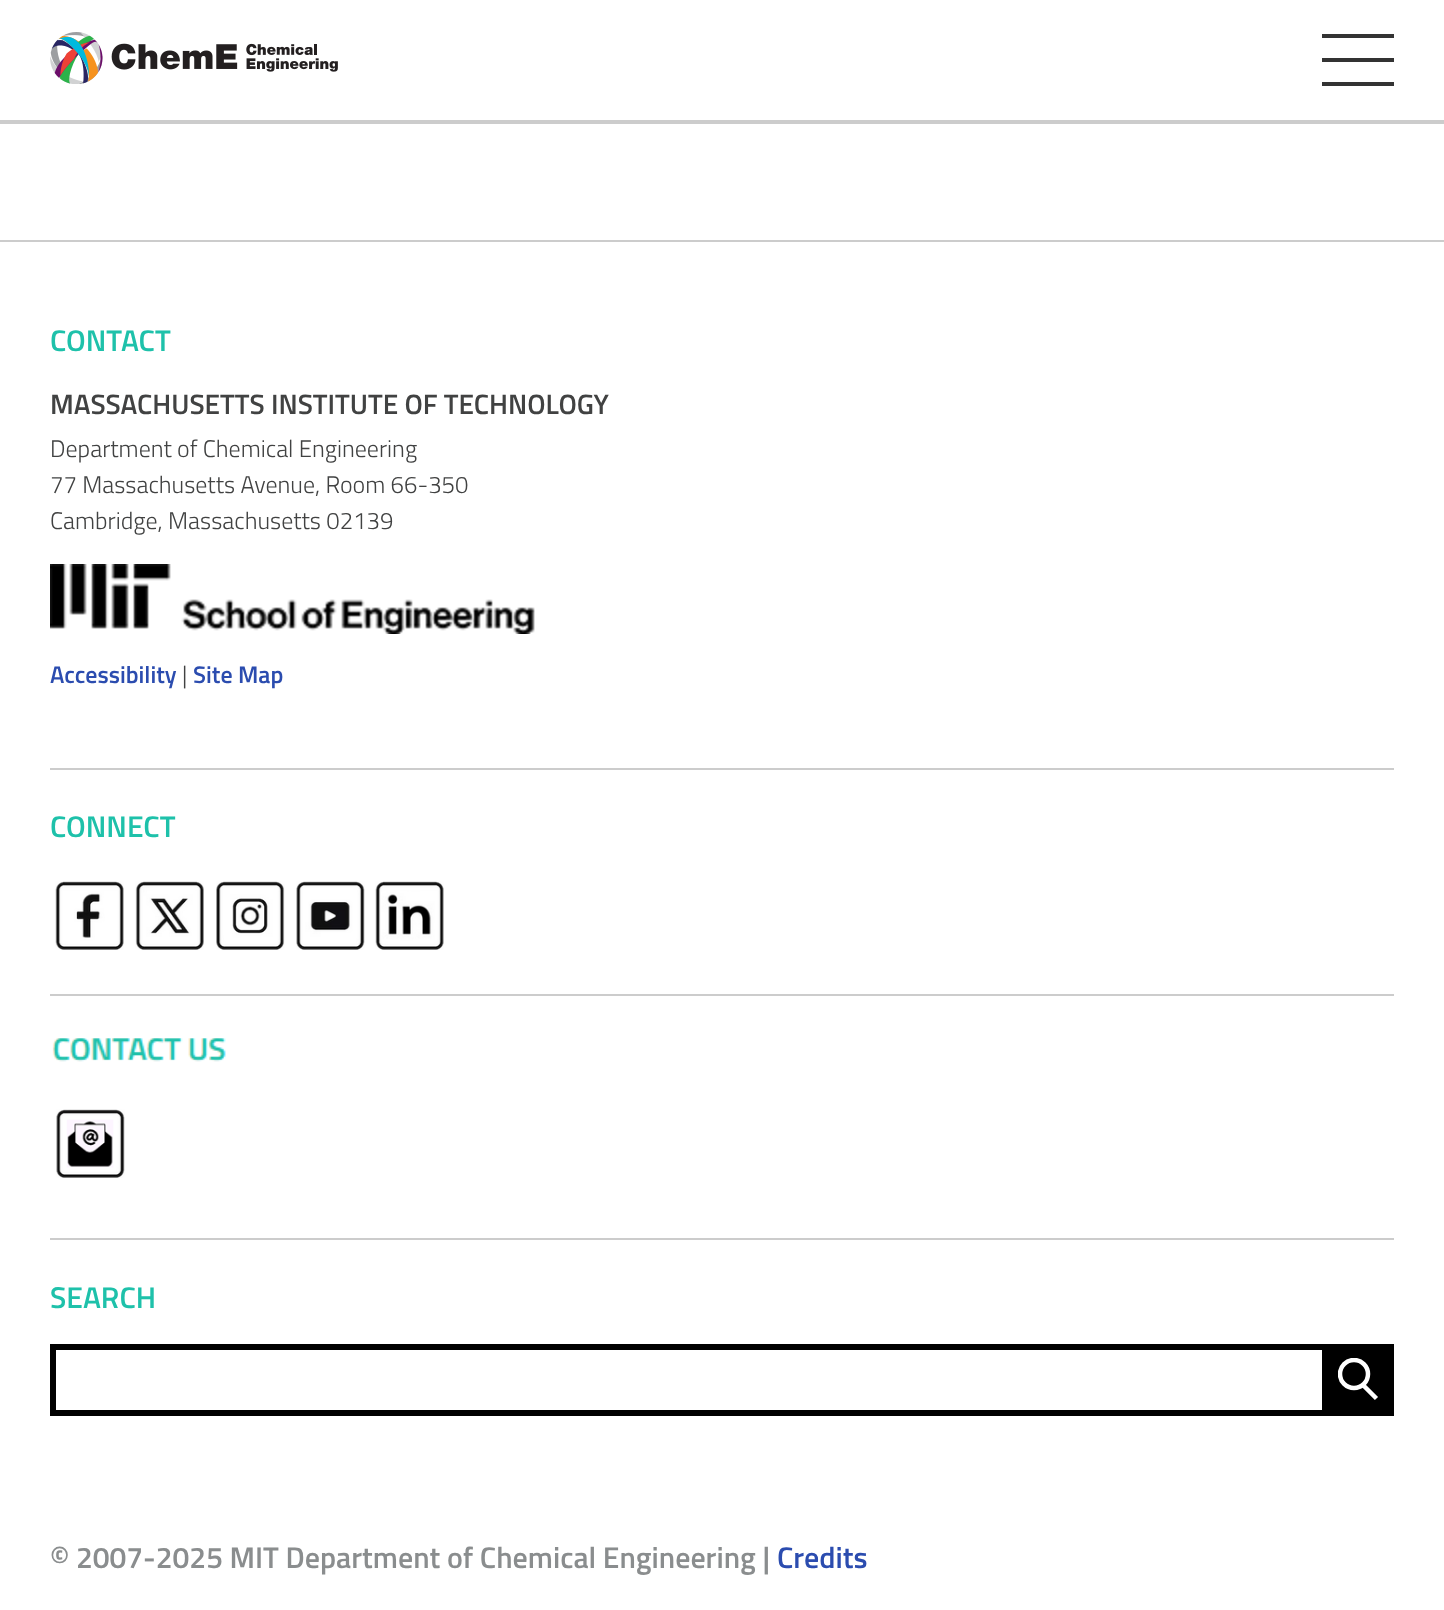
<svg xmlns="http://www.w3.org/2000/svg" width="1444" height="1610">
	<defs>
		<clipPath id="clip1"><rect x="1338" y="1358" width="40" height="42" /></clipPath>
	</defs>
	<rect width="100%" height="100%" fill="#FFFFFF" />
	<rect x="0" y="120" width="1444" height="4" fill="#CCCCCC" />
	<image x="50" y="32" width="288" height="52" href="assets/img1.png" />
	<rect x="1322" y="34" width="72" height="4" fill="#333333" />
	<rect x="1322" y="58" width="72" height="4" fill="#333333" />
	<rect x="1322" y="82" width="72" height="4" fill="#333333" />
	<rect x="0" y="240" width="1444" height="2" fill="#CCCCCC" />
	<rect x="50" y="768" width="1344" height="2" fill="#CCCCCC" />
	<text x="50" y="351" font-family="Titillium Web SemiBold" font-size="30" font-weight="600" fill="#1EC1AA">CONTACT</text>
	<text x="50" y="414" font-family="Titillium Web SemiBold" font-size="28" font-weight="600" fill="#414242">MASSACHUSETTS INSTITUTE OF TECHNOLOGY</text>
	<g font-family="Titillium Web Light" font-size="24" font-weight="300" fill="#414242">
		<text x="50" y="457">Department of Chemical Engineering</text>
		<text x="50" y="493">77 Massachusetts Avenue, Room 66-350</text>
		<text x="50" y="529">Cambridge, Massachusetts 02139</text>
	</g>
	<image x="50" y="564" width="485" height="70" href="assets/img2.png" />
	<text x="50" y="683" font-family="Titillium Web SemiBold" font-size="24" font-weight="600" fill="#2B4CAF">Accessibility</text>
	<text x="182" y="683" font-family="Titillium Web Light" font-size="24" font-weight="300" fill="#414242">|</text>
	<text x="193" y="683" font-family="Titillium Web SemiBold" font-size="24" font-weight="600" fill="#2B4CAF">Site Map</text>
	<rect x="50" y="1238" width="1344" height="2" fill="#CCCCCC" />
	<text x="50" y="837" font-family="Titillium Web SemiBold" font-size="30" font-weight="600" fill="#1EC1AA">CONNECT</text>
	<image x="55" y="881" width="69" height="69" href="assets/img3.png" />
	<image x="135" y="881" width="69" height="69" href="assets/img4.png" />
	<image x="216" y="881" width="69" height="69" href="assets/img5.png" />
	<image x="296" y="881" width="69" height="69" href="assets/img6.png" />
	<image x="375" y="881" width="69" height="69" href="assets/img7.png" />
	<rect x="50" y="994" width="1344" height="2" fill="#CCCCCC" />
	<image x="52" y="1038" width="174" height="24" href="assets/img8.png" />
	<image x="56" y="1109" width="69" height="69" href="assets/img9.png" />
	<text x="50" y="1308" font-family="Titillium Web SemiBold" font-size="30" font-weight="600" fill="#1EC1AA">SEARCH</text>
	<rect x="50" y="1344" width="1272" height="6" fill="#000000" />
	<rect x="50" y="1410" width="1272" height="6" fill="#000000" />
	<rect x="50" y="1344" width="6" height="72" fill="#000000" />
	<rect x="1322" y="1344" width="72" height="72" fill="#000000" />
	<g clip-path="url(#clip1)">
		<circle cx="1354" cy="1374" r="14" fill="none" stroke="#FFFFFF" stroke-width="4.5" />
	</g>
	<path d="M1362 1384L1376.5 1398.5" fill="none" stroke="#FFFFFF" stroke-width="4.5" />
	<text x="50" y="1568" font-family="Titillium Web SemiBold" font-size="30" font-weight="600" fill="#8A8D8E">© 2007-2025 MIT Department of Chemical Engineering |</text>
	<text x="777" y="1568" font-family="Titillium Web SemiBold" font-size="30" font-weight="600" fill="#2B4CAF">Credits</text>
</svg>
